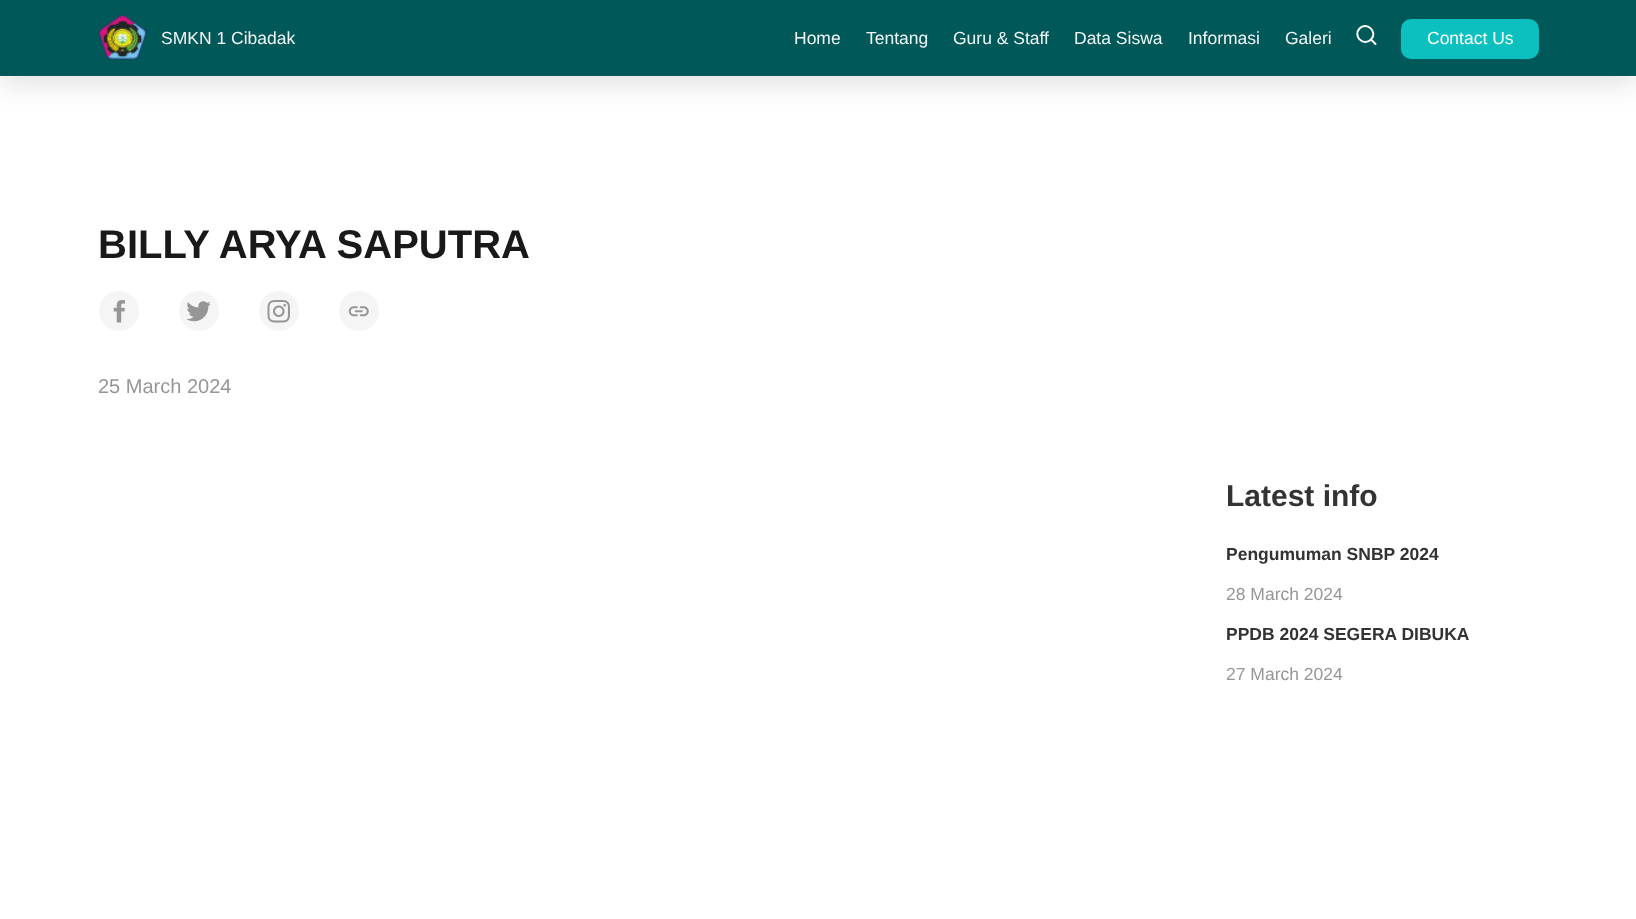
<svg xmlns="http://www.w3.org/2000/svg" width="1636" height="919">
	<rect width="100%" height="100%" fill="#FFFFFF" />
	<rect x="0" y="5" width="1636" height="76" fill="#000000" fill-opacity="0.14" filter="blur(15.5px)" />
	<rect x="0" y="0" width="1636" height="76" fill="#005858" />
	<image x="98" y="15" width="49" height="45" href="assets/img1.png" />
	<g font-family="Liberation Sans" font-size="17.5" fill="#F3F4F6">
		<text x="161" y="44">SMKN 1 Cibadak</text>
		<text x="794" y="44">Home</text>
		<text x="866" y="44">Tentang</text>
		<text x="953" y="44">Guru &amp; Staff</text>
		<text x="1074" y="44">Data Siswa</text>
		<text x="1188" y="44">Informasi</text>
		<text x="1285" y="44">Galeri</text>
	</g>
	<path d="M1375.5 44L1371 39.5M1371 39.5C1378.5 32 1366.5 21 1359.5 28.5C1352.5 36 1363.5 47 1371 39.5Z" fill="none" stroke="#FFFFFF" stroke-width="2" stroke-linecap="round" stroke-linejoin="round" />
	<rect x="1401" y="19" width="138" height="40" rx="10" fill="#0DC0C0" />
	<text x="1427" y="44" font-family="Liberation Sans" font-size="17.5" fill="#FFFFFF">Contact Us</text>
	<text x="98" y="258" font-family="Liberation Sans" font-size="40" font-weight="700" fill="#191919">BILLY ARYA SAPUTRA</text>
	<image x="99" y="291" width="40" height="40" href="assets/img2.png" />
	<image x="179" y="291" width="40" height="40" href="assets/img3.png" />
	<image x="259" y="291" width="40" height="40" href="assets/img4.png" />
	<image x="339" y="291" width="40" height="40" href="assets/img5.png" />
	<text x="98" y="393" font-family="Liberation Sans" font-size="20" fill="#969696">25 March 2024</text>
	<text x="1226" y="506" font-family="Liberation Sans" font-size="30" font-weight="700" fill="#333333">Latest info</text>
	<text x="1226" y="560" font-family="Liberation Sans" font-size="17.5" font-weight="700" fill="#333333">Pengumuman SNBP 2024</text>
	<text x="1226" y="600" font-family="Liberation Sans" font-size="17.5" fill="#969696">28 March 2024</text>
	<text x="1226" y="640" font-family="Liberation Sans" font-size="17.5" font-weight="700" fill="#333333">PPDB 2024 SEGERA DIBUKA</text>
	<text x="1226" y="680" font-family="Liberation Sans" font-size="17.5" fill="#969696">27 March 2024</text>
</svg>
